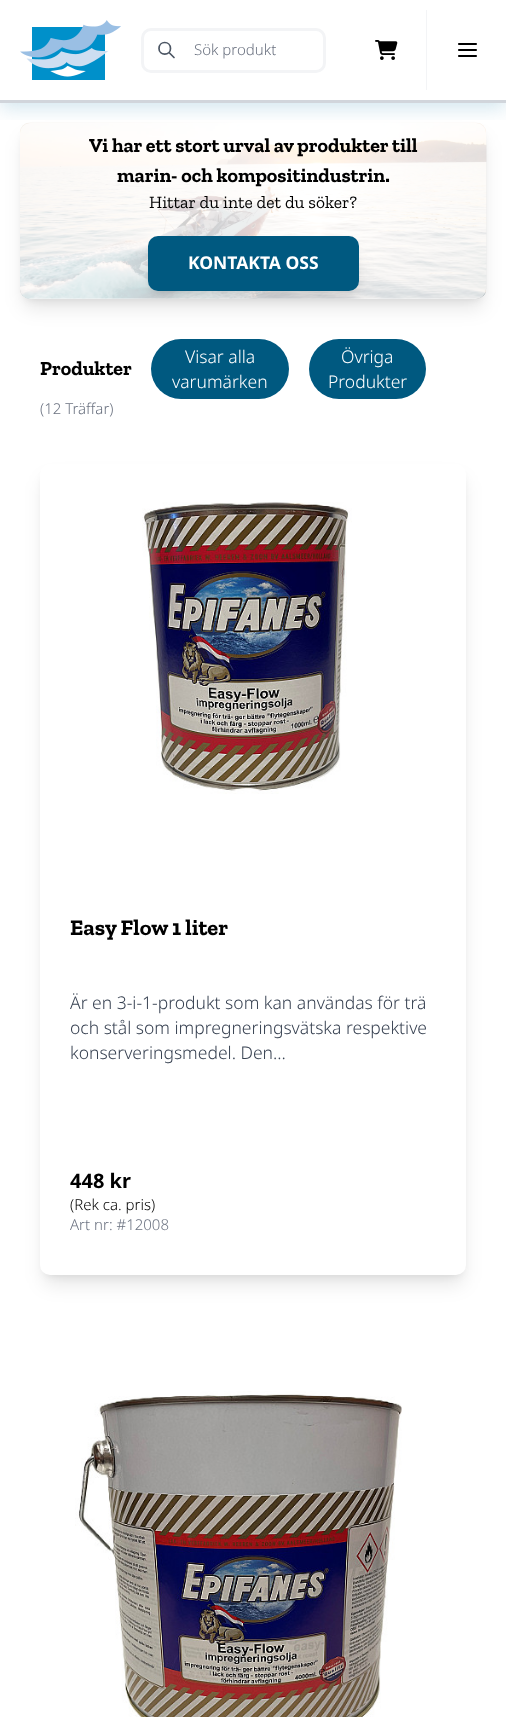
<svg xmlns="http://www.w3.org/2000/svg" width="506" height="1717">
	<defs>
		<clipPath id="clip1"><rect x="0" y="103" width="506" height="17" /></clipPath>
		<clipPath id="clip2"><rect x="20" y="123" width="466" height="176" rx="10" /></clipPath>
	</defs>
	<rect width="100%" height="100%" fill="#FFFFFF" />
	<g clip-path="url(#clip1)">
		<rect x="0" y="5" width="506" height="103" fill="#0071A0" fill-opacity="0.18" filter="blur(9.5px)" />
	</g>
	<rect x="0" y="100" width="506" height="3" fill="#D1D5DB" />
	<image x="20" y="20" width="101" height="60" href="assets/img1.png" />
	<rect x="142.5" y="29.5" width="182" height="42" rx="8.5" fill="none" stroke="#F3F4F6" stroke-width="3" />
	<path d="M174 57.5L169 52.5M170.5 48.5C170.5 56 159 56 159 48.5C159 40.5 170.5 40.5 170.5 48.5Z" fill="none" stroke="#4B5563" stroke-width="1.7" stroke-linecap="round" stroke-linejoin="round" />
	<text x="194" y="55" font-family="Noto Sans" font-size="15" font-weight="300" fill="#6B7280">Sök produkt</text>
	<image x="375" y="40" width="23" height="20" href="assets/img2.png" />
	<rect x="426" y="10" width="1" height="80" fill="#F3F4F6" />
	<path d="M459 44H476M459 50H476M459 56H476" fill="none" stroke="#000000" stroke-width="2.1" stroke-linecap="round" stroke-linejoin="round" />
	<rect x="25" y="133" width="456" height="166" rx="5" fill="#000000" fill-opacity="0.1" filter="blur(4px)" />
	<rect x="24" y="139" width="459" height="169" rx="6" fill="#000000" fill-opacity="0.1" filter="blur(9.5px)" />
	<image x="20" y="122" width="467" height="177" href="assets/img3.png" />
	<rect x="20" y="123" width="466" height="176" rx="10" fill="#FFFFFF" fill-opacity="0.8" />
	<g font-family="Zilla Slab" font-size="20" font-weight="700" fill="#000000">
		<text x="89" y="152">Vi har ett stort urval av produkter till</text>
		<text x="117" y="182">marin- och kompositindustrin.</text>
	</g>
	<text x="149" y="208" font-family="Zilla Slab" font-size="17.5" fill="#000000">Hittar du inte det du söker?</text>
	<rect x="153" y="246" width="201" height="45" rx="5" fill="#000000" fill-opacity="0.1" filter="blur(4px)" />
	<g clip-path="url(#clip2)">
		<rect x="151" y="253" width="204" height="47" rx="6" fill="#000000" fill-opacity="0.1" filter="blur(9.5px)" />
	</g>
	<rect x="148" y="236" width="211" height="55" rx="10" fill="#005980" />
	<text x="188" y="269" font-family="Noto Sans" font-size="17.5" font-weight="700" fill="#FFFFFF">KONTAKTA OSS</text>
	<text x="40" y="375" font-family="Zilla Slab" font-size="20" font-weight="700" fill="#000000">Produkter</text>
	<rect x="151" y="339" width="138" height="60" rx="30" fill="#005980" />
	<g font-family="Noto Sans" font-size="17.5" font-weight="300" fill="#FFFFFF">
		<text x="185" y="363">Visar alla</text>
		<text x="172" y="388">varumärken</text>
	</g>
	<rect x="309" y="339" width="117" height="60" rx="30" fill="#005980" />
	<g font-family="Noto Sans" font-size="17.5" font-weight="300" fill="#FFFFFF">
		<text x="341" y="363">Övriga</text>
		<text x="328" y="388">Produkter</text>
	</g>
	<text x="40" y="414" font-family="Noto Sans" font-size="15" font-weight="300" fill="#6B7280">(12 Träffar)</text>
	<rect x="45" y="474" width="416" height="801" rx="5" fill="#000000" fill-opacity="0.1" filter="blur(4px)" />
	<rect x="44" y="480" width="419" height="804" rx="6" fill="#000000" fill-opacity="0.1" filter="blur(9.5px)" />
	<rect x="40" y="464" width="426" height="811" rx="10" fill="#FFFFFF" />
	<image x="142" y="502" width="210" height="292" href="assets/img4.png" />
	<text x="70" y="935" font-family="Zilla Slab" font-size="22.5" font-weight="700" fill="#000000">Easy Flow 1 liter</text>
	<g font-family="Noto Sans" font-size="17.5" font-weight="300" fill="#374151">
		<text x="70" y="1009">Är en 3-i-1-produkt som kan användas för trä</text>
		<text x="70" y="1034">och stål som impregneringsvätska respektive</text>
		<text x="70" y="1059">konserveringsmedel. Den...</text>
	</g>
	<text x="70" y="1188" font-family="Noto Sans" font-size="20" font-weight="700" fill="#000000">448 kr</text>
	<text x="70" y="1210" font-family="Noto Sans" font-size="15" font-weight="300" fill="#000000">(Rek ca. pris)</text>
	<text x="70" y="1230" font-family="Noto Sans" font-size="15" font-weight="300" fill="#6B7280">Art nr: #12008</text>
	<image x="75" y="1391" width="327" height="326" href="assets/img5.png" />
</svg>
